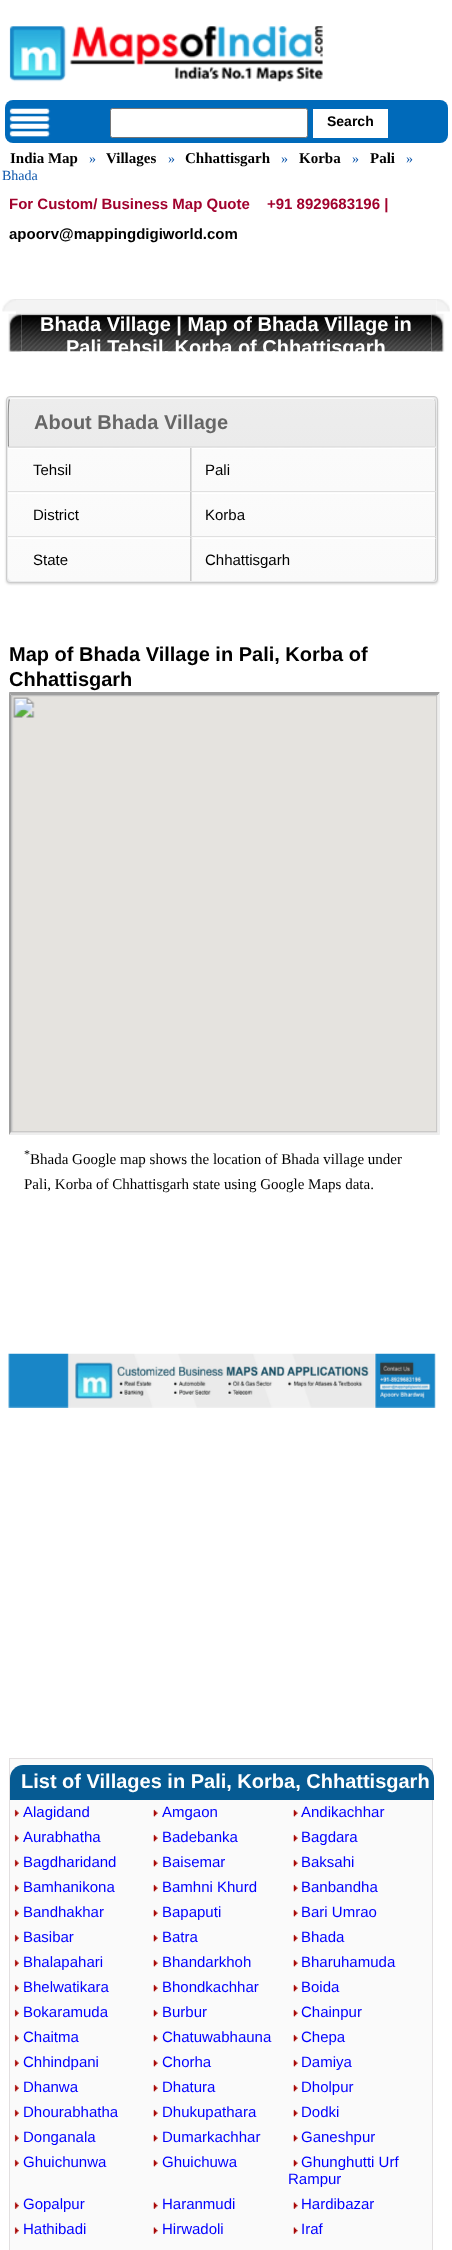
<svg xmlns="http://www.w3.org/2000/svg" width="452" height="2250">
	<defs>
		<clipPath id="clip1"><path d="M12 398H432C434 398 436 400 436 402V448H8V402C8 400 10 398 12 398Z" /></clipPath>
		<linearGradient id="g1" gradientUnits="userSpaceOnUse" x1="9" y1="399" x2="9" y2="446"><stop offset="0" stop-color="#EDEDED" /><stop offset="1" stop-color="#EBEBEB" /></linearGradient>
		<linearGradient id="g2" gradientUnits="userSpaceOnUse" x1="9" y1="446" x2="9" y2="494"><stop offset="0" stop-color="#EDEDED" /><stop offset="1" stop-color="#EBEBEB" /></linearGradient>
		<linearGradient id="g3" gradientUnits="userSpaceOnUse" x1="7.5" y1="449" x2="7.5" y2="491"><stop offset="0" stop-color="#FBFBFB" /><stop offset="1" stop-color="#FAFAFA" /></linearGradient>
		<linearGradient id="g4" gradientUnits="userSpaceOnUse" x1="7.5" y1="491" x2="7.5" y2="534"><stop offset="0" stop-color="#FBFBFB" /><stop offset="1" stop-color="#FAFAFA" /></linearGradient>
		<linearGradient id="g5" gradientUnits="userSpaceOnUse" x1="193" y1="449" x2="193" y2="491"><stop offset="0" stop-color="#FBFBFB" /><stop offset="1" stop-color="#FAFAFA" /></linearGradient>
		<linearGradient id="g6" gradientUnits="userSpaceOnUse" x1="193" y1="491" x2="193" y2="534"><stop offset="0" stop-color="#FBFBFB" /><stop offset="1" stop-color="#FAFAFA" /></linearGradient>
		<linearGradient id="g7" gradientUnits="userSpaceOnUse" x1="7.5" y1="494" x2="7.5" y2="536"><stop offset="0" stop-color="#FBFBFB" /><stop offset="1" stop-color="#FAFAFA" /></linearGradient>
		<linearGradient id="g8" gradientUnits="userSpaceOnUse" x1="7.5" y1="536" x2="7.5" y2="579"><stop offset="0" stop-color="#FBFBFB" /><stop offset="1" stop-color="#FAFAFA" /></linearGradient>
		<linearGradient id="g9" gradientUnits="userSpaceOnUse" x1="193" y1="494" x2="193" y2="536"><stop offset="0" stop-color="#FBFBFB" /><stop offset="1" stop-color="#FAFAFA" /></linearGradient>
		<linearGradient id="g10" gradientUnits="userSpaceOnUse" x1="193" y1="536" x2="193" y2="579"><stop offset="0" stop-color="#FBFBFB" /><stop offset="1" stop-color="#FAFAFA" /></linearGradient>
		<linearGradient id="g11" gradientUnits="userSpaceOnUse" x1="7.5" y1="539" x2="7.5" y2="581"><stop offset="0" stop-color="#FBFBFB" /><stop offset="1" stop-color="#FAFAFA" /></linearGradient>
		<linearGradient id="g12" gradientUnits="userSpaceOnUse" x1="193" y1="496" x2="193" y2="539"><stop offset="0" stop-color="#FBFBFB" /><stop offset="1" stop-color="#FAFAFA" /></linearGradient>
		<linearGradient id="g13" gradientUnits="userSpaceOnUse" x1="193" y1="539" x2="193" y2="581"><stop offset="0" stop-color="#FBFBFB" /><stop offset="1" stop-color="#FAFAFA" /></linearGradient>
	</defs>
	<rect width="100%" height="100%" fill="#FFFFFF" />
	<image x="9" y="26" width="314" height="56" href="assets/img1.png" />
	<rect x="5" y="100" width="443" height="43" rx="8" fill="#006ABA" />
	<image x="9" y="108" width="42" height="29" href="assets/img2.png" />
	<rect x="110.5" y="108.5" width="197" height="29" rx="2" fill="#FFFFFF" stroke="#767676" />
	<rect x="313" y="109" width="75" height="29" fill="#FFFFFF" />
	<text x="327" y="126" font-family="Liberation Sans" font-size="14" font-weight="700" fill="#000000">Search</text>
	<text x="10" y="163" font-family="Liberation Serif" font-size="15" font-weight="700" fill="#000000">India Map</text>
	<text x="89" y="163" font-family="Liberation Serif" font-size="14" fill="#0C56AC">»</text>
	<text x="106" y="163" font-family="Liberation Serif" font-size="15" font-weight="700" fill="#000000">Villages</text>
	<text x="168" y="163" font-family="Liberation Serif" font-size="14" fill="#0C56AC">»</text>
	<text x="185" y="163" font-family="Liberation Serif" font-size="15" font-weight="700" fill="#000000">Chhattisgarh</text>
	<text x="281" y="163" font-family="Liberation Serif" font-size="14" fill="#0C56AC">»</text>
	<text x="299" y="163" font-family="Liberation Serif" font-size="15" font-weight="700" fill="#000000">Korba</text>
	<text x="352" y="163" font-family="Liberation Serif" font-size="14" fill="#0C56AC">»</text>
	<text x="370" y="163" font-family="Liberation Serif" font-size="15" font-weight="700" fill="#000000">Pali</text>
	<g font-family="Liberation Serif" font-size="14" fill="#0C56AC">
		<text x="406" y="163">»</text>
		<text x="2" y="180">Bhada</text>
	</g>
	<text x="267" y="209" font-family="Liberation Sans" font-size="15" font-weight="700" fill="#A1022D">+91 8929683196 |</text>
	<text x="9" y="239" font-family="Liberation Sans" font-size="15" font-weight="700" fill="#000000">apoorv@mappingdigiworld.com</text>
	<text x="9" y="209" font-family="Liberation Sans" font-size="15" font-weight="700" fill="#A1022D">For Custom/ Business Map Quote</text>
	<image x="2" y="299" width="14" height="13" href="assets/img3.png" />
	<rect x="16" y="300" width="420" height="14" fill="#F3F3F3" />
	<rect x="16" y="299" width="420" height="1" fill="#EBEBEB" />
	<image x="436" y="299" width="14" height="13" href="assets/img4.png" />
	<image x="21" y="313" width="411" height="39" href="assets/img6.png" />
	<image x="8" y="313" width="14" height="39" href="assets/img5.png" />
	<g font-family="Liberation Sans" font-size="20" font-weight="700" fill="#FFFFFF">
		<text x="40" y="331">Bhada Village | Map of Bhada Village in</text>
		<text x="66" y="354">Pali Tehsil, Korba of Chhattisgarh</text>
	</g>
	<image x="431" y="313" width="14" height="39" href="assets/img7.png" />
	<rect x="6" y="398" width="432" height="186" rx="4" fill="#D1D1D1" filter="blur(1px)" />
	<rect x="6.5" y="396.5" width="431" height="186" rx="3.5" fill="#EAEBEC" stroke="#CCCCCC" />
	<g clip-path="url(#clip1)">
		<rect x="8" y="399" width="428" height="47" fill="url(#g1)" />
	</g>
	<rect x="8" y="446" width="428" height="2" fill="url(#g2)" />
	<path d="M11 398L9 399L10 400L11 399H432L434 400L435 399L432 398Z" fill="#FAFAFA" />
	<path d="M436 447C436 442 437 400 435 399L434 400L435 401V446Z" fill="#CCCCCC" />
	<path d="M8 448L9 446H435L436 447Z" fill="#E0E0E0" />
	<path d="M9 399C7 401 8 441 8 447L9 446C9 441 8 401 10 400Z" fill="#888888" />
	<text x="34" y="429" font-family="Liberation Sans" font-size="20" font-weight="700" fill="#666666">About Bhada Village</text>
	<rect x="8" y="449" width="182" height="42" fill="url(#g3)" />
	<rect x="8" y="492" width="183" height="1" fill="url(#g4)" />
	<rect x="8" y="448" width="428" height="1" fill="#FFFFFF" />
	<rect x="190" y="448" width="1" height="45" fill="#CCCCCC" />
	<rect x="8" y="491" width="183" height="1" fill="#E0E0E0" />
	<text x="33" y="475" font-family="Liberation Sans" font-size="15" fill="#000000">Tehsil</text>
	<rect x="192" y="449" width="243" height="42" fill="url(#g5)" />
	<rect x="191" y="492" width="245" height="1" fill="url(#g6)" />
	<rect x="435" y="448" width="1" height="45" fill="#CCCCCC" />
	<rect x="191" y="491" width="245" height="1" fill="#E0E0E0" />
	<rect x="191" y="448" width="1" height="45" fill="#E0E0E0" />
	<text x="205" y="475" font-family="Liberation Sans" font-size="15" fill="#000000">Pali</text>
	<rect x="8" y="494" width="182" height="42" fill="url(#g7)" />
	<rect x="8" y="537" width="183" height="1" fill="url(#g8)" />
	<rect x="8" y="493" width="428" height="1" fill="#FFFFFF" />
	<rect x="190" y="493" width="1" height="45" fill="#CCCCCC" />
	<rect x="8" y="536" width="183" height="1" fill="#E0E0E0" />
	<text x="33" y="520" font-family="Liberation Sans" font-size="15" fill="#000000">District</text>
	<rect x="192" y="494" width="243" height="42" fill="url(#g9)" />
	<rect x="191" y="537" width="245" height="1" fill="url(#g10)" />
	<rect x="435" y="493" width="1" height="45" fill="#CCCCCC" />
	<rect x="191" y="536" width="245" height="1" fill="#E0E0E0" />
	<rect x="191" y="493" width="1" height="45" fill="#E0E0E0" />
	<text x="205" y="520" font-family="Liberation Sans" font-size="15" fill="#000000">Korba</text>
	<path d="M8 539H191V581H12C10 581 8 579 8 577Z" fill="url(#g11)" />
	<path d="M8 538H191L190 539H8Z" fill="#FFFFFF" />
	<path d="M190 539V581H191V538Z" fill="#CCCCCC" />
	<text x="33" y="565" font-family="Liberation Sans" font-size="15" fill="#000000">State</text>
	<rect x="191" y="538" width="245" height="1" fill="url(#g12)" />
	<path d="M191 539H436V577C436 579 434 581 432 581H191Z" fill="url(#g13)" />
	<path d="M193 539L192 538H436L435 539Z" fill="#FFFFFF" />
	<path d="M435 539V578C435 580 434 581 432 581C435 581 436 580 436 578V538Z" fill="#CCCCCC" />
	<path d="M192 539V581H191V538L193 539Z" fill="#E0E0E0" />
	<text x="205" y="565" font-family="Liberation Sans" font-size="15" fill="#000000">Chhattisgarh</text>
	<g font-family="Liberation Sans" font-size="20" font-weight="700" fill="#000000">
		<text x="9" y="661">Map of Bhada Village in Pali, Korba of</text>
		<text x="9" y="686">Chhattisgarh</text>
	</g>
	<path d="M9 692H440L438 695H11Z" fill="#9F9F9F" />
	<path d="M440 692V1135L438 1132V695Z" fill="#EEEEEE" />
	<path d="M440 1135H9L11 1132H438Z" fill="#EEEEEE" />
	<path d="M9 1135V692L11 695V1132Z" fill="#9F9F9F" />
	<image x="11" y="695" width="427" height="438" href="assets/img8.png" />
	<text x="24" y="1158" font-family="Liberation Serif" font-size="12" fill="#000000">*</text>
	<g font-family="Liberation Serif" font-size="15" fill="#000000">
		<text x="30" y="1164">Bhada Google map shows the location of Bhada village under</text>
		<text x="24" y="1189">Pali, Korba of Chhattisgarh state using Google Maps data.</text>
	</g>
	<image x="8" y="1353" width="428" height="55" href="assets/img9.png" />
	<rect x="9.5" y="1758.5" width="423" height="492" fill="#FAFAFA" stroke="#E2DFE0" />
	<path d="M23 1765H421C428 1765 434 1771 434 1778V1800H10V1778C10 1771 16 1765 23 1765Z" fill="#065B93" />
	<text x="21" y="1788" font-family="Liberation Sans" font-size="20" font-weight="700" fill="#FFFFFF">List of Villages in Pali, Korba, Chhattisgarh</text>
	<image x="14" y="1809" width="5" height="8" href="assets/img10.png" />
	<text x="23" y="1817" font-family="Liberation Sans" font-size="15" fill="#0000FF">Alagidand</text>
	<image x="153" y="1809" width="5" height="8" href="assets/img11.png" />
	<text x="162" y="1817" font-family="Liberation Sans" font-size="15" fill="#0000FF">Amgaon</text>
	<image x="293" y="1809" width="5" height="8" href="assets/img11.png" />
	<text x="301" y="1817" font-family="Liberation Sans" font-size="15" fill="#0000FF">Andikachhar</text>
	<image x="14" y="1834" width="5" height="8" href="assets/img10.png" />
	<text x="23" y="1842" font-family="Liberation Sans" font-size="15" fill="#0000FF">Aurabhatha</text>
	<image x="153" y="1834" width="5" height="8" href="assets/img11.png" />
	<text x="162" y="1842" font-family="Liberation Sans" font-size="15" fill="#0000FF">Badebanka</text>
	<image x="293" y="1834" width="5" height="8" href="assets/img11.png" />
	<text x="301" y="1842" font-family="Liberation Sans" font-size="15" fill="#0000FF">Bagdara</text>
	<image x="14" y="1859" width="5" height="8" href="assets/img12.png" />
	<text x="23" y="1867" font-family="Liberation Sans" font-size="15" fill="#0000FF">Bagdharidand</text>
	<image x="153" y="1859" width="5" height="8" href="assets/img13.png" />
	<text x="162" y="1867" font-family="Liberation Sans" font-size="15" fill="#0000FF">Baisemar</text>
	<image x="293" y="1859" width="5" height="8" href="assets/img13.png" />
	<text x="301" y="1867" font-family="Liberation Sans" font-size="15" fill="#0000FF">Baksahi</text>
	<image x="14" y="1884" width="5" height="8" href="assets/img10.png" />
	<text x="23" y="1892" font-family="Liberation Sans" font-size="15" fill="#0000FF">Bamhanikona</text>
	<image x="153" y="1884" width="5" height="8" href="assets/img11.png" />
	<text x="162" y="1892" font-family="Liberation Sans" font-size="15" fill="#0000FF">Bamhni Khurd</text>
	<image x="293" y="1884" width="5" height="8" href="assets/img11.png" />
	<text x="301" y="1892" font-family="Liberation Sans" font-size="15" fill="#0000FF">Banbandha</text>
	<image x="14" y="1909" width="5" height="8" href="assets/img10.png" />
	<text x="23" y="1917" font-family="Liberation Sans" font-size="15" fill="#0000FF">Bandhakhar</text>
	<image x="153" y="1909" width="5" height="8" href="assets/img11.png" />
	<text x="162" y="1917" font-family="Liberation Sans" font-size="15" fill="#0000FF">Bapaputi</text>
	<image x="293" y="1909" width="5" height="8" href="assets/img11.png" />
	<text x="301" y="1917" font-family="Liberation Sans" font-size="15" fill="#0000FF">Bari Umrao</text>
	<image x="14" y="1934" width="5" height="8" href="assets/img10.png" />
	<text x="23" y="1942" font-family="Liberation Sans" font-size="15" fill="#0000FF">Basibar</text>
	<image x="153" y="1934" width="5" height="8" href="assets/img11.png" />
	<text x="162" y="1942" font-family="Liberation Sans" font-size="15" fill="#0000FF">Batra</text>
	<image x="293" y="1934" width="5" height="8" href="assets/img11.png" />
	<text x="301" y="1942" font-family="Liberation Sans" font-size="15" fill="#0000FF">Bhada</text>
	<image x="14" y="1959" width="5" height="8" href="assets/img10.png" />
	<text x="23" y="1967" font-family="Liberation Sans" font-size="15" fill="#0000FF">Bhalapahari</text>
	<image x="153" y="1959" width="5" height="8" href="assets/img11.png" />
	<text x="162" y="1967" font-family="Liberation Sans" font-size="15" fill="#0000FF">Bhandarkhoh</text>
	<image x="293" y="1959" width="5" height="8" href="assets/img11.png" />
	<text x="301" y="1967" font-family="Liberation Sans" font-size="15" fill="#0000FF">Bharuhamuda</text>
	<image x="14" y="1984" width="5" height="8" href="assets/img10.png" />
	<text x="23" y="1992" font-family="Liberation Sans" font-size="15" fill="#0000FF">Bhelwatikara</text>
	<image x="153" y="1984" width="5" height="8" href="assets/img11.png" />
	<text x="162" y="1992" font-family="Liberation Sans" font-size="15" fill="#0000FF">Bhondkachhar</text>
	<image x="293" y="1984" width="5" height="8" href="assets/img11.png" />
	<text x="301" y="1992" font-family="Liberation Sans" font-size="15" fill="#0000FF">Boida</text>
	<image x="14" y="2009" width="5" height="8" href="assets/img10.png" />
	<text x="23" y="2017" font-family="Liberation Sans" font-size="15" fill="#0000FF">Bokaramuda</text>
	<image x="153" y="2009" width="5" height="8" href="assets/img11.png" />
	<text x="162" y="2017" font-family="Liberation Sans" font-size="15" fill="#0000FF">Burbur</text>
	<image x="293" y="2009" width="5" height="8" href="assets/img11.png" />
	<text x="301" y="2017" font-family="Liberation Sans" font-size="15" fill="#0000FF">Chainpur</text>
	<image x="14" y="2034" width="5" height="8" href="assets/img10.png" />
	<text x="23" y="2042" font-family="Liberation Sans" font-size="15" fill="#0000FF">Chaitma</text>
	<image x="153" y="2034" width="5" height="8" href="assets/img11.png" />
	<text x="162" y="2042" font-family="Liberation Sans" font-size="15" fill="#0000FF">Chatuwabhauna</text>
	<image x="293" y="2034" width="5" height="8" href="assets/img11.png" />
	<text x="301" y="2042" font-family="Liberation Sans" font-size="15" fill="#0000FF">Chepa</text>
	<image x="14" y="2059" width="5" height="8" href="assets/img10.png" />
	<text x="23" y="2067" font-family="Liberation Sans" font-size="15" fill="#0000FF">Chhindpani</text>
	<image x="153" y="2059" width="5" height="8" href="assets/img11.png" />
	<text x="162" y="2067" font-family="Liberation Sans" font-size="15" fill="#0000FF">Chorha</text>
	<image x="293" y="2059" width="5" height="8" href="assets/img11.png" />
	<text x="301" y="2067" font-family="Liberation Sans" font-size="15" fill="#0000FF">Damiya</text>
	<image x="14" y="2084" width="5" height="8" href="assets/img10.png" />
	<text x="23" y="2092" font-family="Liberation Sans" font-size="15" fill="#0000FF">Dhanwa</text>
	<image x="153" y="2084" width="5" height="8" href="assets/img11.png" />
	<text x="162" y="2092" font-family="Liberation Sans" font-size="15" fill="#0000FF">Dhatura</text>
	<image x="293" y="2084" width="5" height="8" href="assets/img11.png" />
	<text x="301" y="2092" font-family="Liberation Sans" font-size="15" fill="#0000FF">Dholpur</text>
	<image x="14" y="2109" width="5" height="8" href="assets/img10.png" />
	<text x="23" y="2117" font-family="Liberation Sans" font-size="15" fill="#0000FF">Dhourabhatha</text>
	<image x="153" y="2109" width="5" height="8" href="assets/img11.png" />
	<text x="162" y="2117" font-family="Liberation Sans" font-size="15" fill="#0000FF">Dhukupathara</text>
	<image x="293" y="2109" width="5" height="8" href="assets/img11.png" />
	<text x="301" y="2117" font-family="Liberation Sans" font-size="15" fill="#0000FF">Dodki</text>
	<image x="14" y="2134" width="5" height="8" href="assets/img10.png" />
	<text x="23" y="2142" font-family="Liberation Sans" font-size="15" fill="#0000FF">Donganala</text>
	<image x="153" y="2134" width="5" height="8" href="assets/img11.png" />
	<text x="162" y="2142" font-family="Liberation Sans" font-size="15" fill="#0000FF">Dumarkachhar</text>
	<image x="293" y="2134" width="5" height="8" href="assets/img11.png" />
	<text x="301" y="2142" font-family="Liberation Sans" font-size="15" fill="#0000FF">Ganeshpur</text>
	<image x="14" y="2159" width="5" height="8" href="assets/img10.png" />
	<text x="23" y="2167" font-family="Liberation Sans" font-size="15" fill="#0000FF">Ghuichunwa</text>
	<image x="153" y="2159" width="5" height="8" href="assets/img11.png" />
	<text x="162" y="2167" font-family="Liberation Sans" font-size="15" fill="#0000FF">Ghuichuwa</text>
	<image x="293" y="2159" width="5" height="8" href="assets/img11.png" />
	<g font-family="Liberation Sans" font-size="15" fill="#0000FF">
		<text x="301" y="2167">Ghunghutti Urf</text>
		<text x="288" y="2184">Rampur</text>
	</g>
	<image x="14" y="2202" width="5" height="7" href="assets/img14.png" />
	<text x="23" y="2209" font-family="Liberation Sans" font-size="15" fill="#0000FF">Gopalpur</text>
	<image x="153" y="2202" width="5" height="7" href="assets/img15.png" />
	<text x="162" y="2209" font-family="Liberation Sans" font-size="15" fill="#0000FF">Haranmudi</text>
	<image x="293" y="2202" width="5" height="7" href="assets/img15.png" />
	<text x="301" y="2209" font-family="Liberation Sans" font-size="15" fill="#0000FF">Hardibazar</text>
	<image x="14" y="2227" width="5" height="7" href="assets/img14.png" />
	<text x="23" y="2234" font-family="Liberation Sans" font-size="15" fill="#0000FF">Hathibadi</text>
	<image x="153" y="2227" width="5" height="7" href="assets/img15.png" />
	<text x="162" y="2234" font-family="Liberation Sans" font-size="15" fill="#0000FF">Hirwadoli</text>
	<image x="293" y="2227" width="5" height="7" href="assets/img15.png" />
	<text x="301" y="2234" font-family="Liberation Sans" font-size="15" fill="#0000FF">Iraf</text>
</svg>
